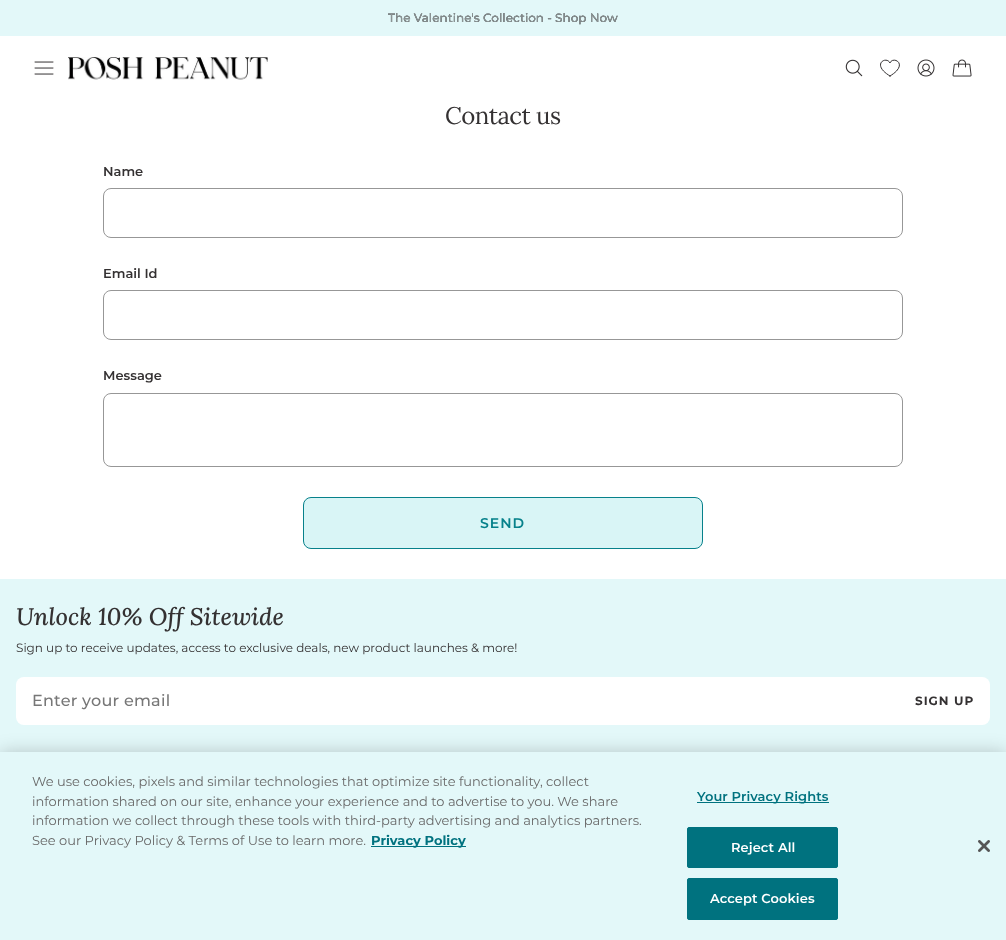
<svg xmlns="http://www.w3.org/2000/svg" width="1006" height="940">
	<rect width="100%" height="100%" fill="#FFFFFF" />
	<rect x="0" y="0" width="1006" height="36" fill="#E3F8F9" />
	<text x="388" y="22" font-family="Montserrat" font-size="12" font-weight="500" fill="#343132">The Valentine's Collection - Shop Now</text>
	<text x="388" y="22" font-family="Montserrat" font-size="12" font-weight="500" fill="#8A9394">The Valentine's Collection - Shop Now</text>
	<image x="34" y="61" width="20" height="14" href="assets/img1.png" />
	<image x="68" y="57" width="200" height="23" href="assets/img2.png" />
	<image x="845" y="59" width="18" height="18" href="assets/img3.png" />
	<path d="M890 76C887.5 74.5 885.5 73 883.5 71C875 62 887 56.5 890 63C892.5 56.5 905 62 896.5 71C894.5 73 892.5 74.5 890 76Z" fill="none" stroke="#343132" stroke-linecap="round" stroke-linejoin="round" />
	<image x="917" y="59" width="18" height="18" href="assets/img4.png" />
	<image x="952" y="59" width="20" height="18" href="assets/img5.png" />
	<text x="445" y="124" font-family="Lora" font-size="24" letter-spacing="-0.5" fill="#343132">Contact us</text>
	<text x="103" y="176" font-family="Montserrat" font-size="13" font-weight="600" fill="#343132">Name</text>
	<rect x="103.5" y="188.5" width="799" height="49" rx="7.5" fill="none" stroke="#979797" />
	<text x="103" y="278" font-family="Montserrat" font-size="13" font-weight="600" fill="#343132">Email Id</text>
	<rect x="103.5" y="290.5" width="799" height="49" rx="7.5" fill="none" stroke="#979797" />
	<text x="103" y="380" font-family="Montserrat" font-size="13" font-weight="600" fill="#343132">Message</text>
	<rect x="103.5" y="393.5" width="799" height="73" rx="7.5" fill="none" stroke="#979797" />
	<rect x="303.5" y="497.5" width="399" height="51" rx="7.5" fill="#D9F5F6" stroke="#07818B" />
	<text x="480" y="528" font-family="Montserrat" font-size="14" font-weight="600" letter-spacing="1" fill="#07818B">SEND</text>
	<rect x="0" y="579" width="1006" height="173" fill="#E3F8F9" />
	<text x="16" y="625" font-family="Lora" font-size="24" font-weight="500" font-style="italic" fill="#343132">Unlock 10% Off Sitewide</text>
	<text x="16" y="652" font-family="Montserrat" font-size="12" font-weight="100" fill="#343132">Sign up to receive updates, access to exclusive deals, new product launches &amp; more!</text>
	<rect x="16" y="677" width="974" height="48" rx="8" fill="#FFFFFF" />
	<text x="32" y="706" font-family="Montserrat" font-size="16" font-weight="500" letter-spacing="0.25" fill="#777777">Enter your email</text>
	<text x="915" y="705" font-family="Montserrat" font-size="12" font-weight="700" letter-spacing="1" fill="#343132">SIGN UP</text>
	<rect x="0" y="752" width="1006" height="188" fill="#000000" fill-opacity="0.2" filter="blur(9px)" />
	<rect x="0" y="752" width="1006" height="188" fill="#E3F8F9" />
	<g font-family="Montserrat" font-size="13" font-weight="100" fill="#696969">
		<text x="32" y="786">We use cookies, pixels and similar technologies that optimize site functionality, collect</text>
		<text x="32" y="806">information shared on our site, enhance your experience and to advertise to you. We share</text>
		<text x="32" y="825">information we collect through these tools with third-party advertising and analytics partners.</text>
		<text x="32" y="845">See our Privacy Policy &amp; Terms of Use to learn more.</text>
	</g>
	<rect x="371" y="846" width="95" height="1" fill="#00727F" />
	<text x="371" y="845" font-family="Montserrat" font-size="13" font-weight="700" fill="#00727F">Privacy Policy</text>
	<rect x="697" y="802" width="132" height="1" fill="#00727F" />
	<text x="697" y="801" font-family="Montserrat" font-size="13" font-weight="600" letter-spacing="0.1" fill="#00727F">Your Privacy Rights</text>
	<rect x="687.5" y="827.5" width="150" height="40" rx="1.5" fill="#00727F" stroke="#00727F" />
	<text x="731" y="852" font-family="Montserrat" font-size="13" font-weight="600" letter-spacing="0.1" fill="#FFFFFF">Reject All</text>
	<rect x="687.5" y="878.5" width="150" height="41" rx="1.5" fill="#00727F" stroke="#00727F" />
	<text x="710" y="903" font-family="Montserrat" font-size="13" font-weight="600" letter-spacing="0.1" fill="#FFFFFF">Accept Cookies</text>
	<image x="978" y="840" width="12" height="12" href="assets/img6.png" />
</svg>
